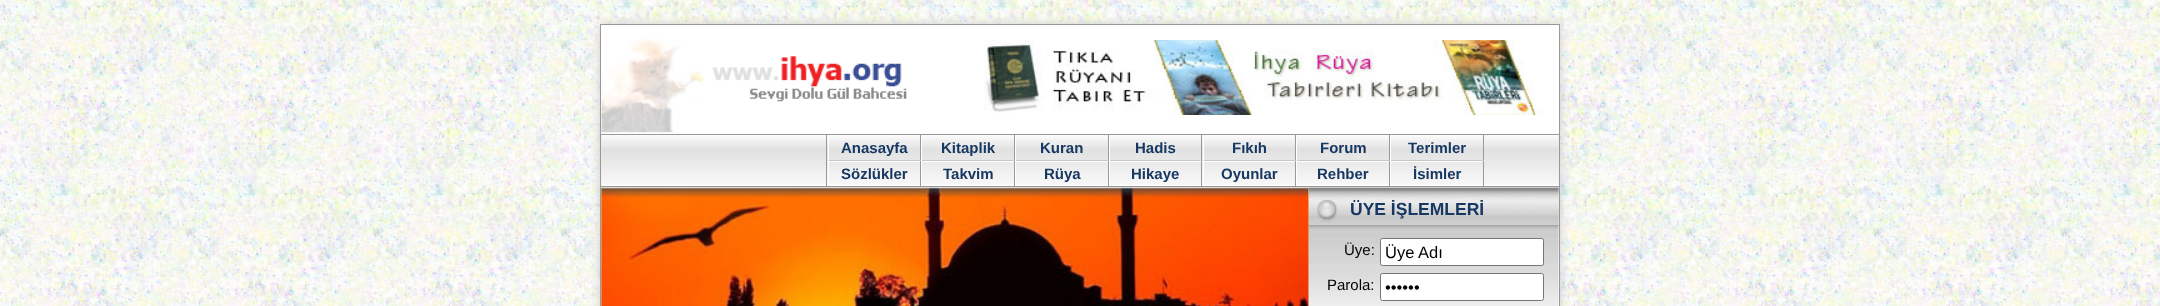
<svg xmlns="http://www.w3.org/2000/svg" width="2160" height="306">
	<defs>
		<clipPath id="clip1"><rect x="1385" y="243" width="154" height="18" /></clipPath>
	</defs>
	<rect width="100%" height="100%" fill="#FFFFFF" />
	<image x="0" y="0" width="2160" height="306" href="assets/img1.png" />
	<rect x="600" y="24" width="960" height="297" fill="#CCCCCC" filter="blur(5px)" />
	<rect x="600.5" y="24.5" width="959" height="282" fill="#FFFFFF" stroke="#999999" />
	<image x="601" y="39" width="306" height="94" href="assets/img2.png" />
	<image x="984" y="40" width="560" height="75" href="assets/img3.png" />
	<rect x="601" y="135" width="958" height="53" fill="#EEEEEE" />
	<image x="601" y="135" width="958" height="53" href="assets/img4.png" />
	<rect x="601" y="134" width="958" height="1" fill="#999999" />
	<rect x="601" y="186" width="958" height="1" fill="#999999" />
	<rect x="826" y="135" width="1" height="51" fill="#999999" />
	<rect x="920" y="135" width="1" height="26" fill="#999999" />
	<rect x="828" y="160" width="93" height="1" fill="#C5C6C6" />
	<rect x="828" y="135" width="1" height="26" fill="#FFFFFF" />
	<text x="841" y="153" font-family="Liberation Sans" font-size="15" font-weight="700" fill="#173862">Anasayfa</text>
	<rect x="1014" y="135" width="1" height="26" fill="#999999" />
	<rect x="921" y="160" width="94" height="1" fill="#C5C6C6" />
	<rect x="921" y="135" width="1" height="26" fill="#FFFFFF" />
	<text x="941" y="153" font-family="Liberation Sans" font-size="15" font-weight="700" fill="#173862">Kitaplik</text>
	<rect x="1108" y="135" width="1" height="26" fill="#999999" />
	<rect x="1015" y="160" width="94" height="1" fill="#C5C6C6" />
	<rect x="1015" y="135" width="1" height="26" fill="#FFFFFF" />
	<text x="1040" y="153" font-family="Liberation Sans" font-size="15" font-weight="700" fill="#173862">Kuran</text>
	<rect x="1201" y="135" width="1" height="26" fill="#999999" />
	<rect x="1109" y="160" width="94" height="1" fill="#C5C6C6" />
	<rect x="1109" y="135" width="1" height="26" fill="#FFFFFF" />
	<text x="1135" y="153" font-family="Liberation Sans" font-size="15" font-weight="700" fill="#173862">Hadis</text>
	<rect x="1295" y="135" width="1" height="26" fill="#999999" />
	<rect x="1203" y="160" width="93" height="1" fill="#C5C6C6" />
	<rect x="1203" y="135" width="1" height="26" fill="#FFFFFF" />
	<text x="1232" y="153" font-family="Liberation Sans" font-size="15" font-weight="700" fill="#173862">Fıkıh</text>
	<rect x="1389" y="135" width="1" height="26" fill="#999999" />
	<rect x="1296" y="160" width="94" height="1" fill="#C5C6C6" />
	<rect x="1296" y="135" width="1" height="26" fill="#FFFFFF" />
	<text x="1320" y="153" font-family="Liberation Sans" font-size="15" font-weight="700" fill="#173862">Forum</text>
	<rect x="1483" y="135" width="1" height="26" fill="#999999" />
	<rect x="1390" y="160" width="94" height="1" fill="#C5C6C6" />
	<rect x="1390" y="135" width="1" height="26" fill="#FFFFFF" />
	<text x="1408" y="153" font-family="Liberation Sans" font-size="15" font-weight="700" fill="#173862">Terimler</text>
	<rect x="828" y="161" width="656" height="1" fill="#FFFFFF" />
	<rect x="920" y="161" width="1" height="25" fill="#999999" />
	<rect x="828" y="161" width="1" height="25" fill="#FFFFFF" />
	<text x="841" y="179" font-family="Liberation Sans" font-size="15" font-weight="700" fill="#173862">Sözlükler</text>
	<rect x="1014" y="161" width="1" height="25" fill="#999999" />
	<rect x="921" y="161" width="1" height="25" fill="#FFFFFF" />
	<text x="943" y="179" font-family="Liberation Sans" font-size="15" font-weight="700" fill="#173862">Takvim</text>
	<rect x="1108" y="161" width="1" height="25" fill="#999999" />
	<rect x="1015" y="161" width="1" height="25" fill="#FFFFFF" />
	<text x="1044" y="179" font-family="Liberation Sans" font-size="15" font-weight="700" fill="#173862">Rüya</text>
	<rect x="1201" y="161" width="1" height="25" fill="#999999" />
	<rect x="1109" y="161" width="1" height="25" fill="#FFFFFF" />
	<text x="1131" y="179" font-family="Liberation Sans" font-size="15" font-weight="700" fill="#173862">Hikaye</text>
	<rect x="1295" y="161" width="1" height="25" fill="#999999" />
	<rect x="1203" y="161" width="1" height="25" fill="#FFFFFF" />
	<text x="1221" y="179" font-family="Liberation Sans" font-size="15" font-weight="700" fill="#173862">Oyunlar</text>
	<rect x="1389" y="161" width="1" height="25" fill="#999999" />
	<rect x="1296" y="161" width="1" height="25" fill="#FFFFFF" />
	<text x="1317" y="179" font-family="Liberation Sans" font-size="15" font-weight="700" fill="#173862">Rehber</text>
	<rect x="1483" y="161" width="1" height="25" fill="#999999" />
	<rect x="1390" y="161" width="1" height="25" fill="#FFFFFF" />
	<text x="1413" y="179" font-family="Liberation Sans" font-size="15" font-weight="700" fill="#173862">İsimler</text>
	<rect x="601" y="188" width="708" height="118" fill="#DDDD99" />
	<image x="601" y="187" width="708" height="119" href="assets/img5.png" />
	<image x="1308" y="187" width="251" height="119" href="assets/img6.png" />
	<image x="1308" y="187" width="251" height="38" href="assets/img7.png" />
	<text x="1350" y="215" font-family="Liberation Sans" font-size="17.5" font-weight="700" fill="#173862">ÜYE İŞLEMLERİ</text>
	<text x="1344" y="255" font-family="Liberation Sans" font-size="15" fill="#000000">Üye:</text>
	<rect x="1380.5" y="238.5" width="163" height="27" rx="2" fill="#FFFFFF" stroke="#767676" />
	<g clip-path="url(#clip1)">
		<text x="1385" y="258" font-family="Liberation Sans" font-size="16.5" fill="#000000">Üye Adı</text>
	</g>
	<text x="1327" y="290" font-family="Liberation Sans" font-size="15" fill="#000000">Parola:</text>
	<rect x="1380.5" y="273.5" width="163" height="27" rx="2" fill="#FFFFFF" stroke="#767676" />
	<text x="1385" y="293" font-family="Liberation Sans" font-size="16.5" fill="#000000">••••••</text>
</svg>
